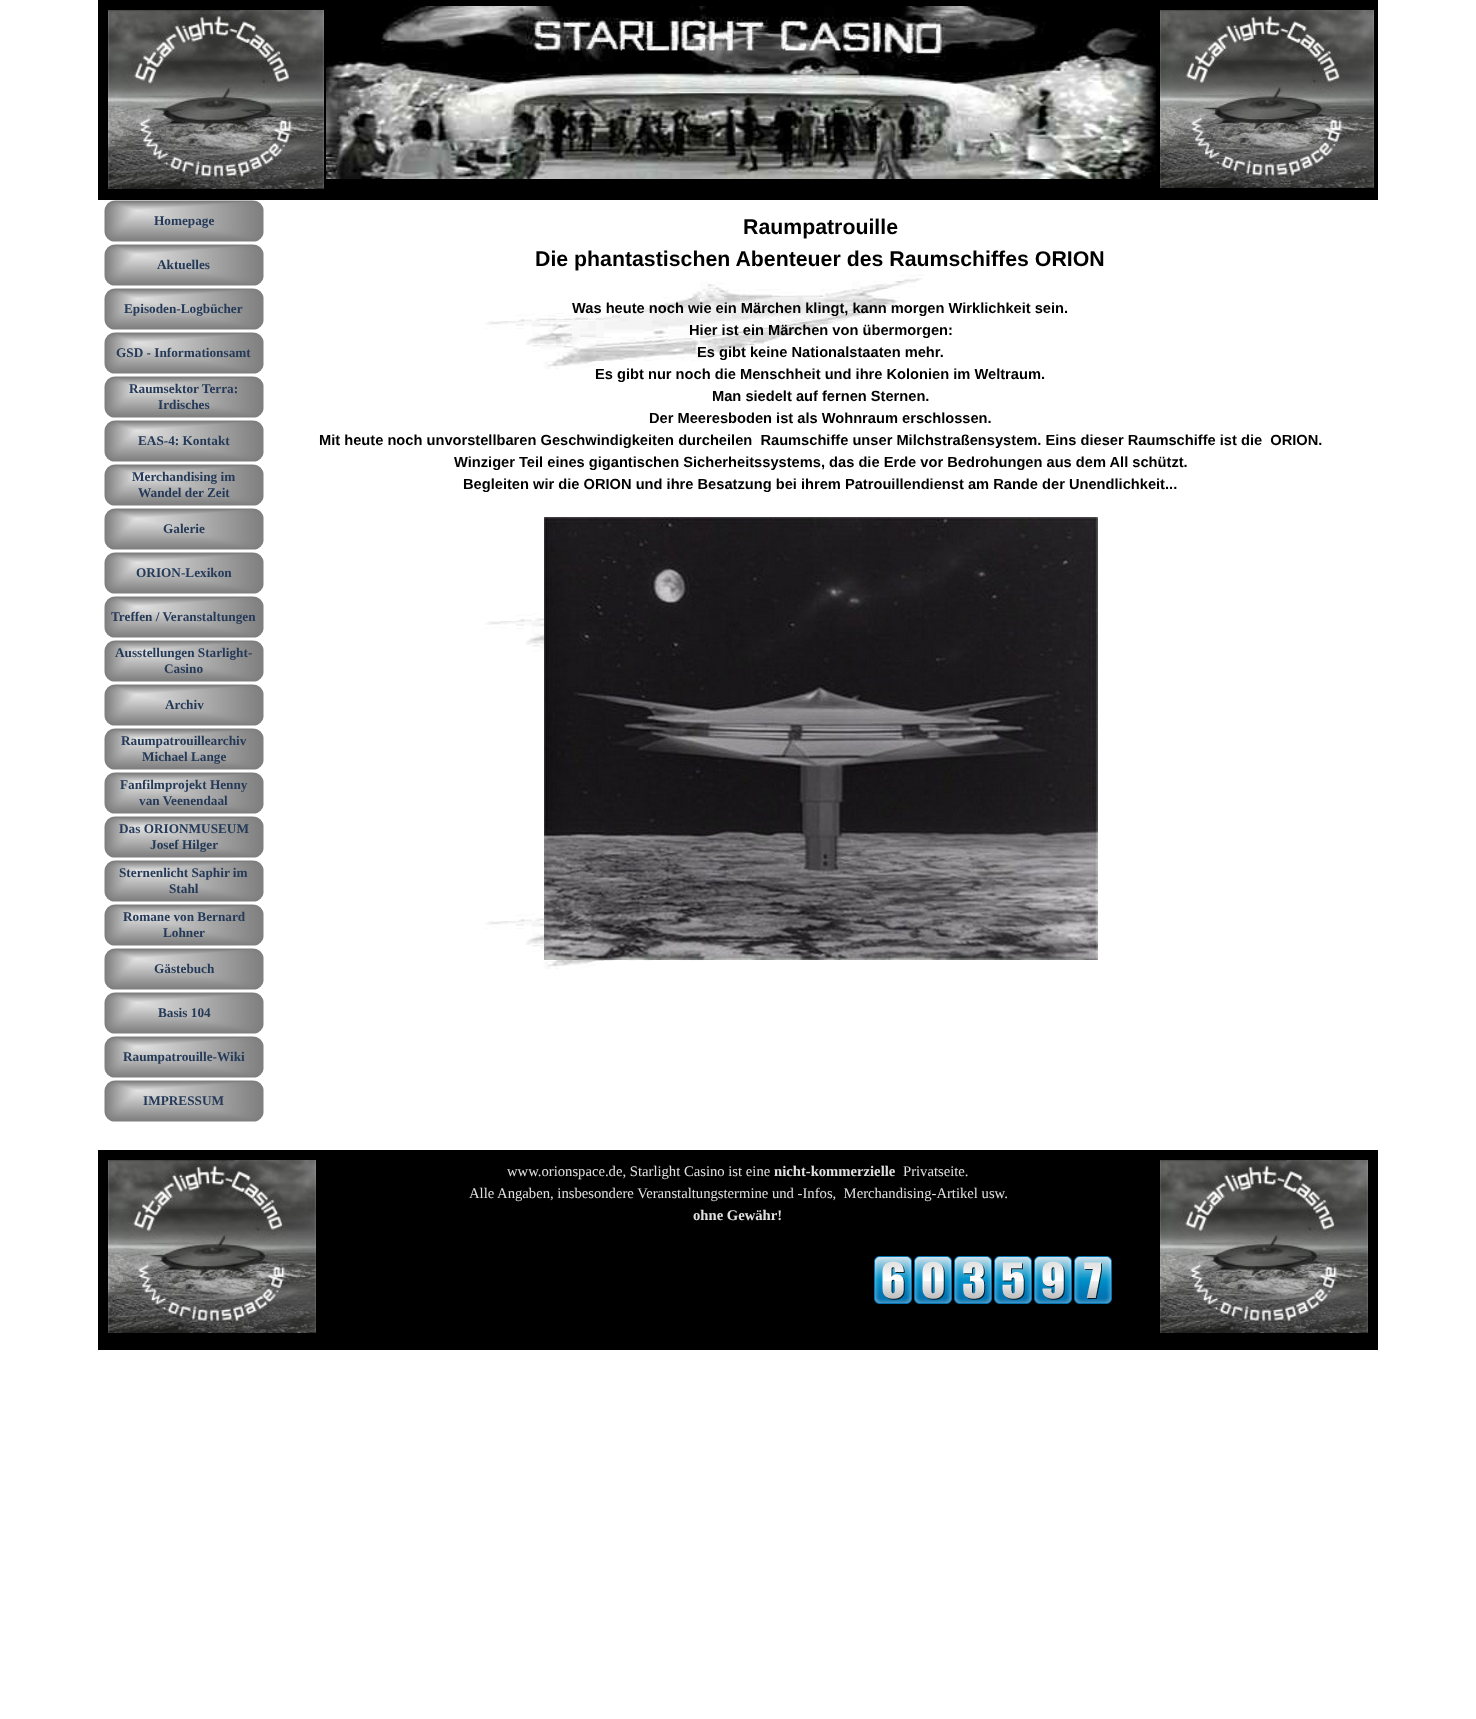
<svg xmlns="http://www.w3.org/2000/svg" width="1476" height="1719">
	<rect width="100%" height="100%" fill="#FFFFFF" />
	<rect x="98" y="0" width="1280" height="200" fill="#000000" />
	<image x="108" y="10" width="216" height="179" href="assets/img1.png" />
	<image x="326" y="6" width="830" height="173" href="assets/img2.png" />
	<image x="1160" y="10" width="214" height="178" href="assets/img3.png" />
	<image x="104" y="200" width="160" height="42" href="assets/img4.png" />
	<text x="154" y="225" font-family="Liberation Serif" font-size="13.25" font-weight="700" fill="#253A58">Homepage</text>
	<image x="104" y="244" width="160" height="42" href="assets/img4.png" />
	<text x="157" y="269" font-family="Liberation Serif" font-size="13.25" font-weight="700" fill="#253A58">Aktuelles</text>
	<image x="104" y="288" width="160" height="42" href="assets/img4.png" />
	<text x="124" y="313" font-family="Liberation Serif" font-size="13.25" font-weight="700" fill="#253A58">Episoden-Logbücher</text>
	<image x="104" y="332" width="160" height="42" href="assets/img4.png" />
	<text x="116" y="357" font-family="Liberation Serif" font-size="13.25" font-weight="700" fill="#253A58">GSD - Informationsamt</text>
	<image x="104" y="376" width="160" height="42" href="assets/img4.png" />
	<g font-family="Liberation Serif" font-size="13.25" font-weight="700" fill="#253A58">
		<text x="129" y="393">Raumsektor Terra:</text>
		<text x="158" y="409">Irdisches</text>
	</g>
	<image x="104" y="420" width="160" height="42" href="assets/img4.png" />
	<text x="138" y="445" font-family="Liberation Serif" font-size="13.25" font-weight="700" fill="#253A58">EAS-4: Kontakt</text>
	<image x="104" y="464" width="160" height="42" href="assets/img4.png" />
	<g font-family="Liberation Serif" font-size="13.25" font-weight="700" fill="#253A58">
		<text x="132" y="481">Merchandising im</text>
		<text x="138" y="497">Wandel der Zeit</text>
	</g>
	<image x="104" y="508" width="160" height="42" href="assets/img4.png" />
	<text x="163" y="533" font-family="Liberation Serif" font-size="13.25" font-weight="700" fill="#253A58">Galerie</text>
	<image x="104" y="552" width="160" height="42" href="assets/img4.png" />
	<text x="136" y="577" font-family="Liberation Serif" font-size="13.25" font-weight="700" fill="#253A58">ORION-Lexikon</text>
	<image x="104" y="596" width="160" height="42" href="assets/img4.png" />
	<text x="111" y="621" font-family="Liberation Serif" font-size="13.25" font-weight="700" fill="#253A58">Treffen / Veranstaltungen</text>
	<image x="104" y="640" width="160" height="42" href="assets/img4.png" />
	<g font-family="Liberation Serif" font-size="13.25" font-weight="700" fill="#253A58">
		<text x="115" y="657">Ausstellungen Starlight-</text>
		<text x="164" y="673">Casino</text>
	</g>
	<image x="104" y="684" width="160" height="42" href="assets/img4.png" />
	<text x="165" y="709" font-family="Liberation Serif" font-size="13.25" font-weight="700" fill="#253A58">Archiv</text>
	<image x="104" y="728" width="160" height="42" href="assets/img4.png" />
	<g font-family="Liberation Serif" font-size="13.25" font-weight="700" fill="#253A58">
		<text x="121" y="745">Raumpatrouillearchiv</text>
		<text x="142" y="761">Michael Lange</text>
	</g>
	<image x="104" y="772" width="160" height="42" href="assets/img4.png" />
	<g font-family="Liberation Serif" font-size="13.25" font-weight="700" fill="#253A58">
		<text x="120" y="789">Fanfilmprojekt Henny</text>
		<text x="139" y="805">van Veenendaal</text>
	</g>
	<image x="104" y="816" width="160" height="42" href="assets/img4.png" />
	<g font-family="Liberation Serif" font-size="13.25" font-weight="700" fill="#253A58">
		<text x="119" y="833">Das ORIONMUSEUM</text>
		<text x="150" y="849">Josef Hilger</text>
	</g>
	<image x="104" y="860" width="160" height="42" href="assets/img4.png" />
	<g font-family="Liberation Serif" font-size="13.25" font-weight="700" fill="#253A58">
		<text x="119" y="877">Sternenlicht Saphir im</text>
		<text x="169" y="893">Stahl</text>
	</g>
	<image x="104" y="904" width="160" height="42" href="assets/img4.png" />
	<g font-family="Liberation Serif" font-size="13.25" font-weight="700" fill="#253A58">
		<text x="123" y="921">Romane von Bernard</text>
		<text x="163" y="937">Lohner</text>
	</g>
	<image x="104" y="948" width="160" height="42" href="assets/img4.png" />
	<text x="154" y="973" font-family="Liberation Serif" font-size="13.25" font-weight="700" fill="#253A58">Gästebuch</text>
	<image x="104" y="992" width="160" height="42" href="assets/img4.png" />
	<text x="158" y="1017" font-family="Liberation Serif" font-size="13.25" font-weight="700" fill="#253A58">Basis 104</text>
	<image x="104" y="1036" width="160" height="42" href="assets/img4.png" />
	<text x="123" y="1061" font-family="Liberation Serif" font-size="13.25" font-weight="700" fill="#253A58">Raumpatrouille-Wiki</text>
	<image x="104" y="1080" width="160" height="42" href="assets/img4.png" />
	<text x="143" y="1105" font-family="Liberation Serif" font-size="13.25" font-weight="700" fill="#253A58">IMPRESSUM</text>
	<g font-family="Liberation Sans" font-size="21.3" font-weight="700" fill="#000000">
		<text x="743" y="234">Raumpatrouille</text>
		<text x="535" y="266">Die phantastischen Abenteuer des Raumschiffes ORION</text>
	</g>
	<image x="484" y="274" width="440" height="695" href="assets/img6.png" />
	<g font-family="Liberation Sans" font-size="14.67" font-weight="700" fill="#000000">
		<text x="572" y="313">Was heute noch wie ein Märchen klingt, kann morgen Wirklichkeit sein.</text>
		<text x="689" y="335">Hier ist ein Märchen von übermorgen:</text>
		<text x="697" y="357">Es gibt keine Nationalstaaten mehr.</text>
		<text x="595" y="379">Es gibt nur noch die Menschheit und ihre Kolonien im Weltraum.</text>
		<text x="712" y="401">Man siedelt auf fernen Sternen.</text>
		<text x="649" y="423">Der Meeresboden ist als Wohnraum erschlossen.</text>
		<text x="319" y="445" xml:space="preserve">Mit heute noch unvorstellbaren Geschwindigkeiten durcheilen  Raumschiffe unser Milchstraßensystem. Eins dieser Raumschiffe ist die  ORION.</text>
		<text x="454" y="467">Winziger Teil eines gigantischen Sicherheitssystems, das die Erde vor Bedrohungen aus dem All schützt.</text>
		<text x="463" y="489">Begleiten wir die ORION und ihre Besatzung bei ihrem Patrouillendienst am Rande der Unendlichkeit...</text>
	</g>
	<image x="544" y="517" width="554" height="443" href="assets/img5.png" />
	<rect x="98" y="1150" width="1280" height="200" fill="#000000" />
	<image x="108" y="1160" width="208" height="173" href="assets/img7.png" />
	<text x="507" y="1176" font-family="Liberation Serif" font-size="14.67" fill="#E0E0E0">www.orionspace.de, Starlight Casino ist eine</text>
	<text x="774" y="1176" font-family="Liberation Serif" font-size="14.67" font-weight="700" fill="#E0E0E0">nicht-kommerzielle</text>
	<g font-family="Liberation Serif" font-size="14.67" fill="#E0E0E0">
		<text x="903" y="1176">Privatseite.</text>
		<text x="469" y="1198" xml:space="preserve">Alle Angaben, insbesondere Veranstaltungstermine und -Infos,  Merchandising-Artikel usw.</text>
	</g>
	<text x="693" y="1220" font-family="Liberation Serif" font-size="14.67" font-weight="700" fill="#E0E0E0">ohne Gewähr!</text>
	<image x="1160" y="1160" width="208" height="173" href="assets/img7.png" />
	<image x="874" y="1256" width="238" height="48" href="assets/img8.png" />
</svg>
